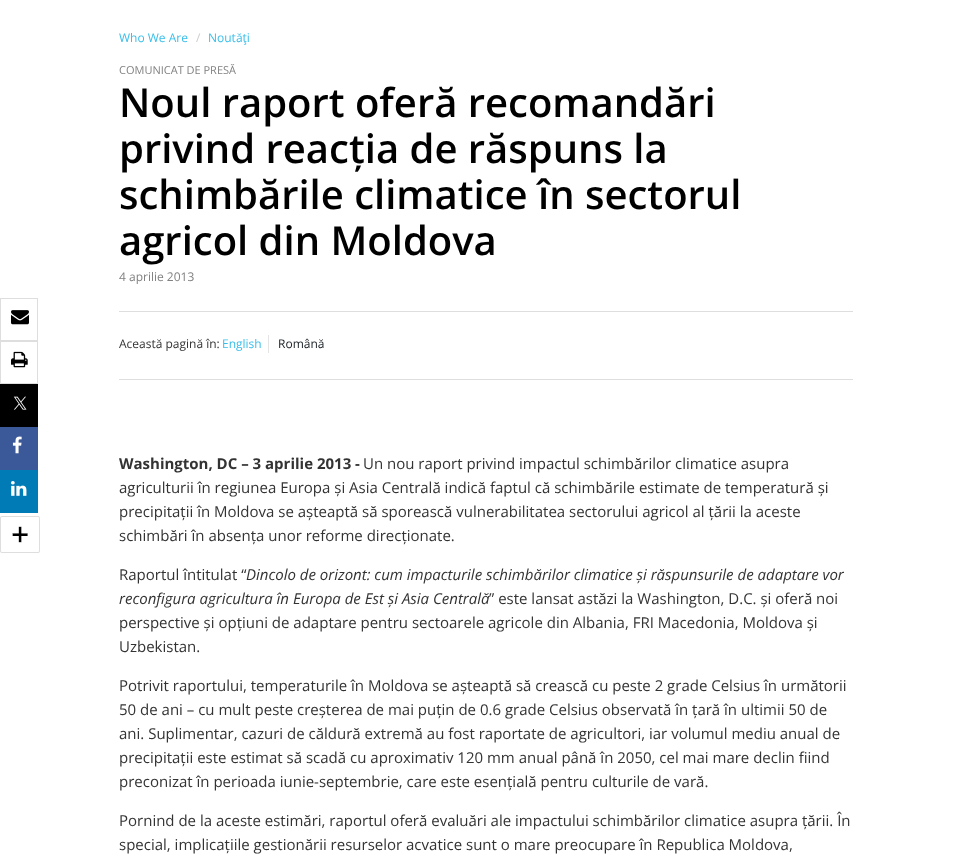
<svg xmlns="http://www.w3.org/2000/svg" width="971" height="862">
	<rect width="100%" height="100%" fill="#FFFFFF" />
	<text x="119" y="42" font-family="Open Sans" font-size="12" fill="#39BEEA">Who We Are</text>
	<text x="196" y="42" font-family="Open Sans" font-size="12" fill="#CCCCCC">/</text>
	<text x="208" y="42" font-family="Open Sans" font-size="12" fill="#39BEEA">Noutăţi</text>
	<text x="119" y="74" font-family="Open Sans" font-size="11" fill="#818181">COMUNICAT DE PRESĂ</text>
	<g font-family="Open Sans" font-size="40" font-weight="600" fill="#000000">
		<text x="119" y="117">Noul raport oferă recomandări</text>
		<text x="119" y="163">privind reacția de răspuns la</text>
		<text x="119" y="209">schimbările climatice în sectorul</text>
		<text x="119" y="255">agricol din Moldova</text>
	</g>
	<text x="119" y="281" font-family="Open Sans" font-size="12" fill="#818181">4 aprilie 2013</text>
	<rect x="119" y="311" width="734" height="1" fill="#DEDEDE" />
	<rect x="0.5" y="298.5" width="37" height="42" fill="none" stroke="#DEDEDE" />
	<image x="11" y="310" width="18" height="15" href="assets/img1.png" />
	<rect x="0.5" y="341.5" width="37" height="42" fill="none" stroke="#DEDEDE" />
	<image x="11" y="351" width="17" height="17" href="assets/img2.png" />
	<rect x="0" y="384" width="38" height="43" fill="#000000" />
	<image x="13" y="396" width="14" height="14" href="assets/img3.png" />
	<rect x="0" y="427" width="38" height="43" fill="#3B5998" />
	<image x="12" y="436" width="10" height="18" href="assets/img4.png" />
	<rect x="0" y="470" width="38" height="43" fill="#007BB6" />
	<image x="11" y="481" width="16" height="15" href="assets/img5.png" />
	<image x="0" y="516" width="40" height="37" href="assets/img6.png" />
	<text x="119" y="348" font-family="Open Sans" font-size="12" fill="#333333">Această pagină în:</text>
	<rect x="268" y="335" width="1" height="18" fill="#E4E4E4" />
	<text x="222" y="348" font-family="Open Sans" font-size="12" fill="#39BEEA">English</text>
	<text x="278" y="348" font-family="Open Sans" font-size="12" fill="#181F25">Română</text>
	<rect x="119" y="379" width="734" height="1" fill="#DEDEDE" />
	<text x="119" y="469" font-family="Open Sans" font-size="15" font-weight="700" fill="#333333">Washington, DC – 3 aprilie 2013 -</text>
	<g font-family="Open Sans" font-size="15" fill="#333333">
		<text x="363" y="469">Un nou raport privind impactul schimbărilor climatice asupra</text>
		<text x="119" y="493">agriculturii în regiunea Europa și Asia Centrală indică faptul că schimbările estimate de temperatură și</text>
		<text x="119" y="517">precipitații în Moldova se așteaptă să sporească vulnerabilitatea sectorului agricol al țării la aceste</text>
		<text x="119" y="541">schimbări în absența unor reforme direcționate.</text>
		<text x="119" y="580">Raportul întitulat “</text>
	</g>
	<g font-family="Open Sans" font-size="15" font-style="italic" fill="#333333">
		<text x="246" y="580">Dincolo de orizont: cum impacturile schimbărilor climatice și răspunsurile de adaptare vor</text>
		<text x="119" y="604">reconfigura agricultura în Europa de Est și Asia Centrală</text>
	</g>
	<g font-family="Open Sans" font-size="15" fill="#333333">
		<text x="489" y="604">” este lansat astăzi la Washington, D.C. și oferă noi</text>
		<text x="119" y="628">perspective și opțiuni de adaptare pentru sectoarele agricole din Albania, FRI Macedonia, Moldova și</text>
		<text x="119" y="652">Uzbekistan.</text>
		<text x="119" y="691">Potrivit raportului, temperaturile în Moldova se așteaptă să crească cu peste 2 grade Celsius în următorii</text>
		<text x="119" y="715">50 de ani – cu mult peste creșterea de mai puțin de 0.6 grade Celsius observată în țară în ultimii 50 de</text>
		<text x="119" y="739">ani. Suplimentar, cazuri de căldură extremă au fost raportate de agricultori, iar volumul mediu anual de</text>
		<text x="119" y="763">precipitații este estimat să scadă cu aproximativ 120 mm anual până în 2050, cel mai mare declin fiind</text>
		<text x="119" y="787">preconizat în perioada iunie-septembrie, care este esențială pentru culturile de vară.</text>
		<text x="119" y="826">Pornind de la aceste estimări, raportul oferă evaluări ale impactului schimbărilor climatice asupra țării. În</text>
		<text x="119" y="850">special, implicațiile gestionării resurselor acvatice sunt o mare preocupare în Republica Moldova,</text>
	</g>
</svg>
